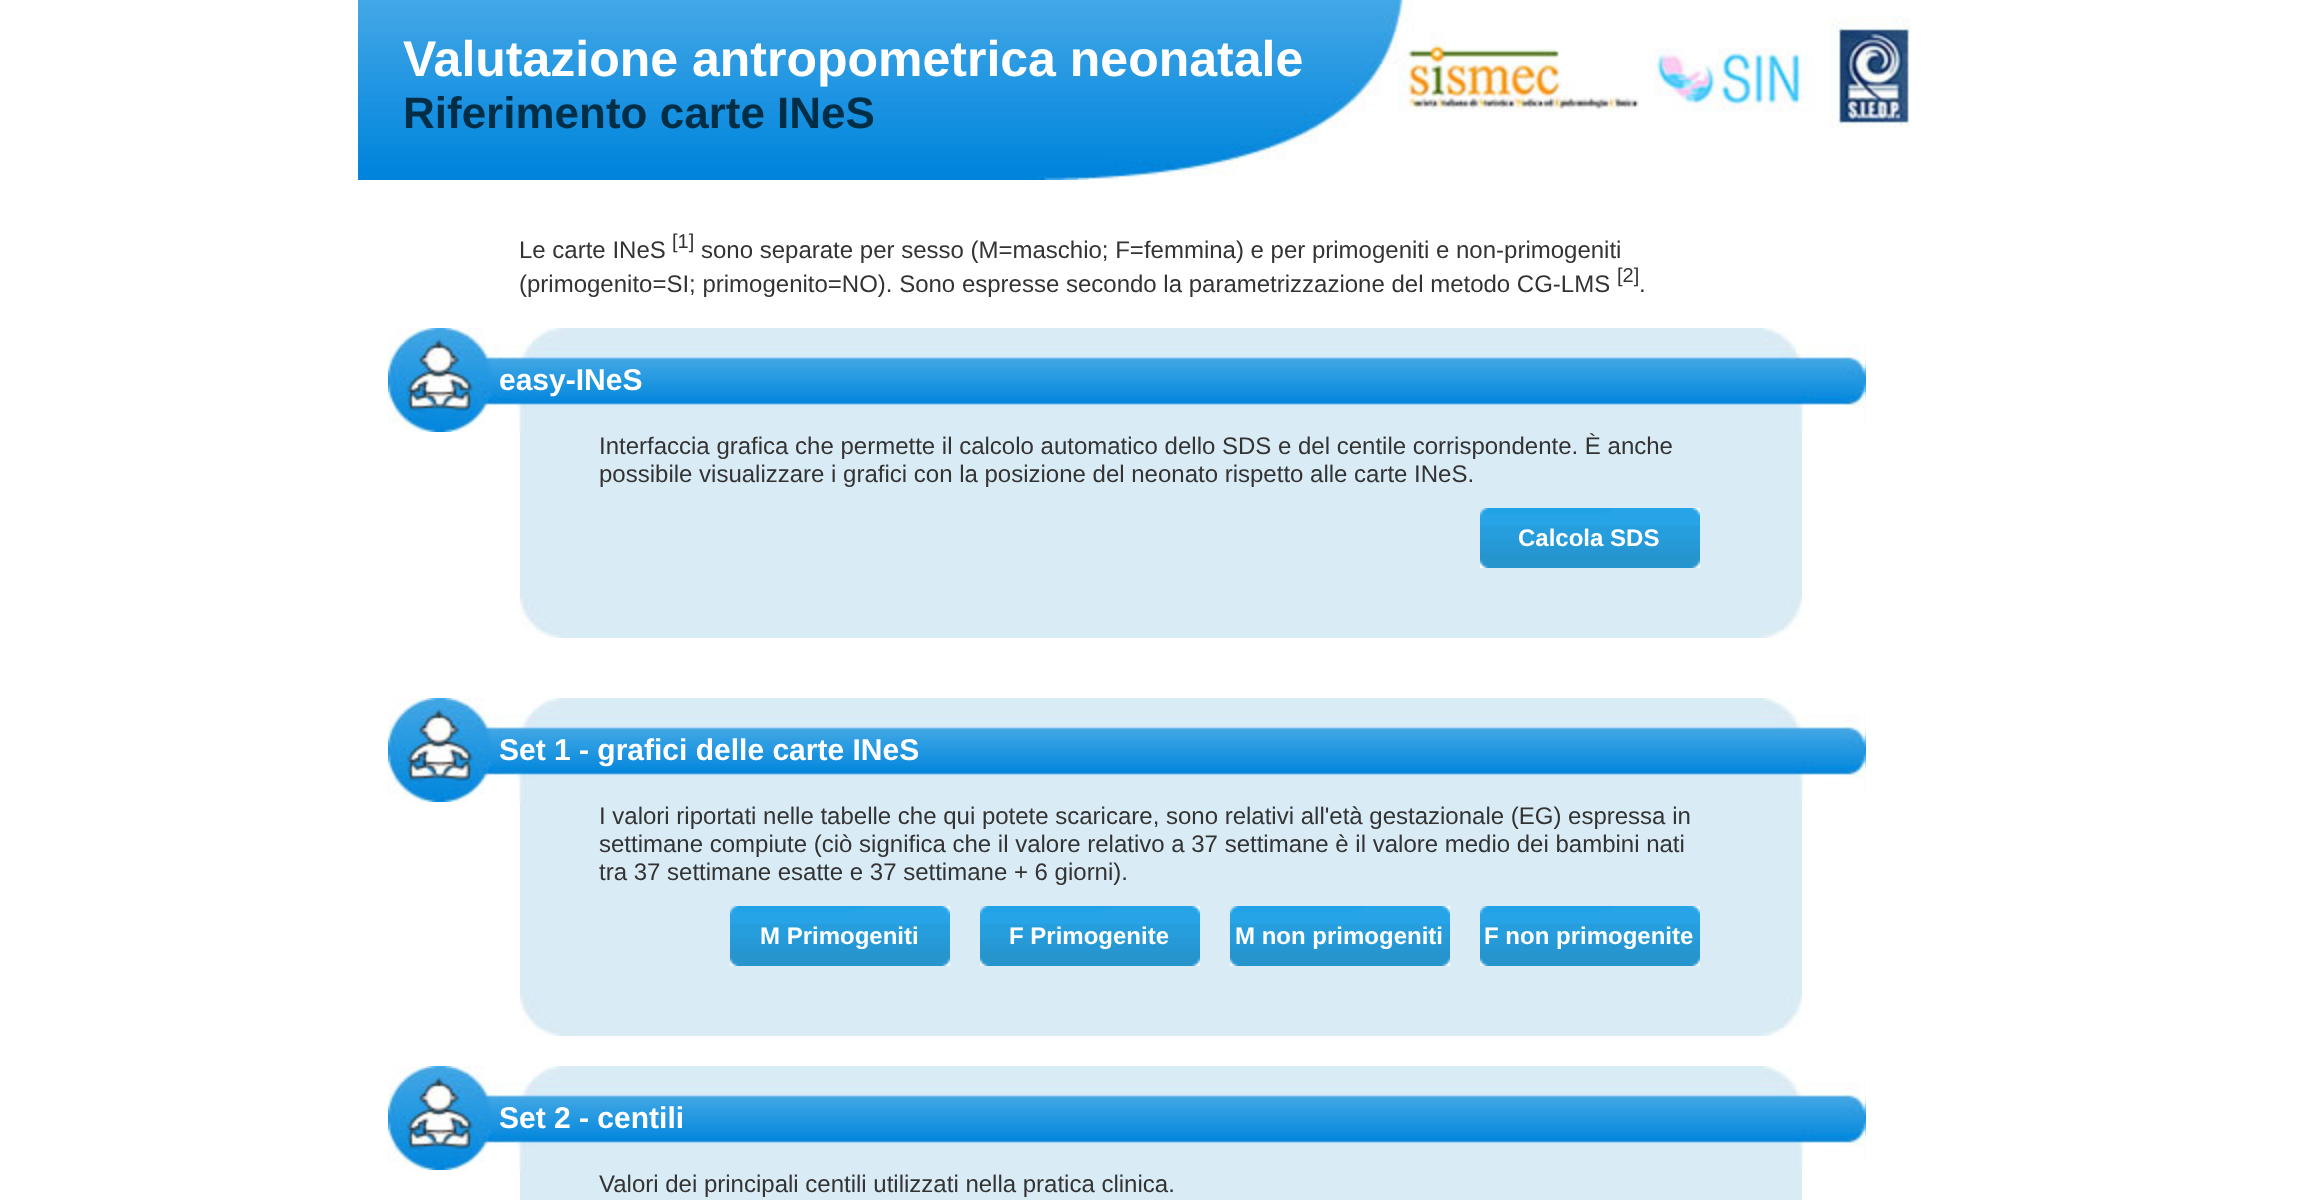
<svg xmlns="http://www.w3.org/2000/svg" width="2313" height="1200">
	<rect width="100%" height="100%" fill="#FFFFFF" />
	<image x="358" y="0" width="1553" height="180" href="assets/img1.png" />
	<text x="403" y="76" font-family="Liberation Sans" font-size="50" font-weight="700" fill="#FFFFFF">Valutazione antropometrica neonatale</text>
	<text x="403" y="128" font-family="Liberation Sans" font-size="44" font-weight="700" fill="#002E46">Riferimento carte INeS</text>
	<text x="519" y="258" font-family="Liberation Sans" font-size="24" fill="#333333">Le carte INeS</text>
	<text x="672" y="248" font-family="Liberation Sans" font-size="20" fill="#333333">[1]</text>
	<g font-family="Liberation Sans" font-size="24" fill="#333333">
		<text x="701" y="258">sono separate per sesso (M=maschio; F=femmina) e per primogeniti e non-primogeniti</text>
		<text x="519" y="292">(primogenito=SI; primogenito=NO). Sono espresse secondo la parametrizzazione del metodo CG-LMS</text>
	</g>
	<text x="1617" y="282" font-family="Liberation Sans" font-size="20" fill="#333333">[2]</text>
	<text x="1639" y="292" font-family="Liberation Sans" font-size="24" fill="#333333">.</text>
	<image x="388" y="328" width="1478" height="104" href="assets/img2.png" />
	<text x="499" y="390" font-family="Liberation Sans" font-size="30" font-weight="700" fill="#FFFFFF">easy-INeS</text>
	<rect x="520" y="432" width="1282" height="166" fill="#D9EBF5" />
	<g font-family="Liberation Sans" font-size="24" fill="#333333">
		<text x="599" y="454">Interfaccia grafica che permette il calcolo automatico dello SDS e del centile corrispondente. È anche</text>
		<text x="599" y="482">possibile visualizzare i grafici con la posizione del neonato rispetto alle carte INeS.</text>
	</g>
	<image x="1480" y="508" width="220" height="60" href="assets/img3.png" />
	<text x="1518" y="546" font-family="Liberation Sans" font-size="24" font-weight="700" fill="#FFFFFF">Calcola SDS</text>
	<image x="520" y="598" width="1282" height="40" href="assets/img4.png" />
	<image x="388" y="698" width="1478" height="104" href="assets/img2.png" />
	<text x="499" y="760" font-family="Liberation Sans" font-size="30" font-weight="700" fill="#FFFFFF">Set 1 - grafici delle carte INeS</text>
	<rect x="520" y="802" width="1282" height="194" fill="#D9EBF5" />
	<g font-family="Liberation Sans" font-size="24" fill="#333333">
		<text x="599" y="824">I valori riportati nelle tabelle che qui potete scaricare, sono relativi all'età gestazionale (EG) espressa in</text>
		<text x="599" y="852">settimane compiute (ciò significa che il valore relativo a 37 settimane è il valore medio dei bambini nati</text>
		<text x="599" y="880">tra 37 settimane esatte e 37 settimane + 6 giorni).</text>
	</g>
	<image x="730" y="906" width="220" height="60" href="assets/img3.png" />
	<text x="760" y="944" font-family="Liberation Sans" font-size="24" font-weight="700" fill="#FFFFFF">M Primogeniti</text>
	<image x="980" y="906" width="220" height="60" href="assets/img3.png" />
	<text x="1009" y="944" font-family="Liberation Sans" font-size="24" font-weight="700" fill="#FFFFFF">F Primogenite</text>
	<image x="1230" y="906" width="220" height="60" href="assets/img3.png" />
	<text x="1235" y="944" font-family="Liberation Sans" font-size="24" font-weight="700" fill="#FFFFFF">M non primogeniti</text>
	<image x="1480" y="906" width="220" height="60" href="assets/img3.png" />
	<text x="1484" y="944" font-family="Liberation Sans" font-size="24" font-weight="700" fill="#FFFFFF">F non primogenite</text>
	<image x="520" y="996" width="1282" height="40" href="assets/img4.png" />
	<image x="388" y="1066" width="1478" height="104" href="assets/img2.png" />
	<text x="499" y="1128" font-family="Liberation Sans" font-size="30" font-weight="700" fill="#FFFFFF">Set 2 - centili</text>
	<rect x="520" y="1170" width="1282" height="30" fill="#D9EBF5" />
	<text x="599" y="1192" font-family="Liberation Sans" font-size="24" fill="#333333">Valori dei principali centili utilizzati nella pratica clinica.</text>
</svg>
